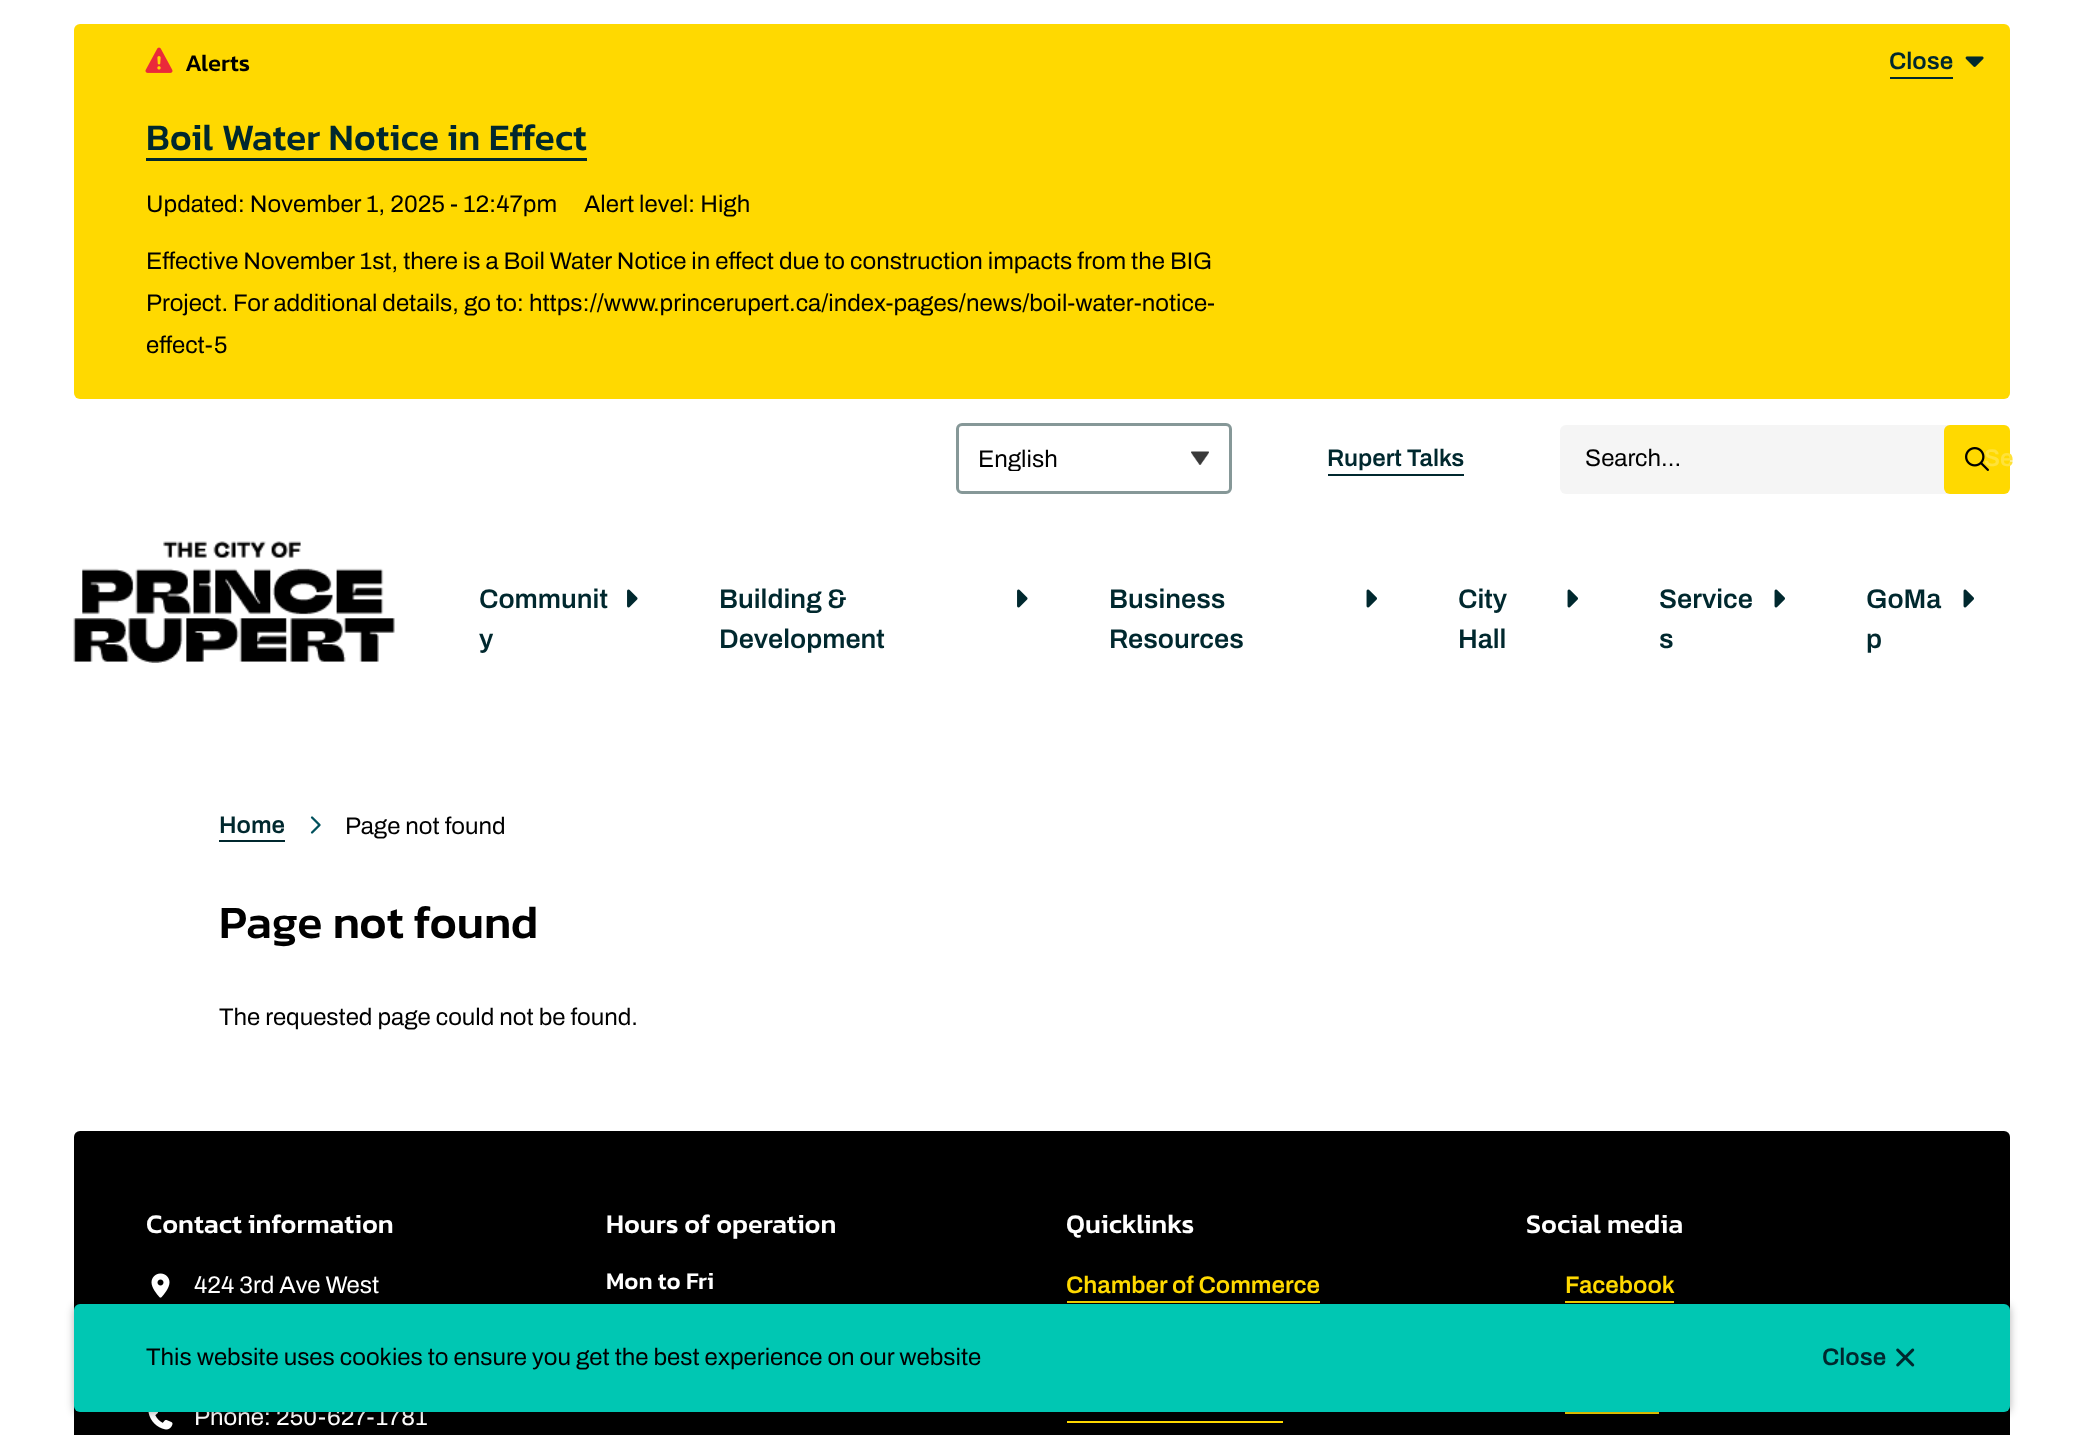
<svg xmlns="http://www.w3.org/2000/svg" width="2083" height="1435">
	<defs>
		<clipPath id="clip1"><rect x="978" y="446" width="179" height="25" /></clipPath>
	</defs>
	<rect width="100%" height="100%" fill="#FFFFFF" />
	<rect x="74" y="24" width="1936" height="375" rx="6" fill="#FFD900" />
	<image x="145" y="47" width="28" height="26" href="assets/img1.png" />
	<text x="185" y="71" font-family="Kanit" font-size="24" font-weight="500" fill="#000000">Alerts</text>
	<text x="1889" y="69" font-family="Archivo" font-size="24" font-weight="600" fill="#00282E">Close</text>
	<rect x="1890" y="77" width="63" height="2" fill="#00282E" />
	<image x="1965" y="56" width="19" height="11" href="assets/img2.png" />
	<text x="146" y="150" font-family="Kanit" font-size="37.5" font-weight="500" fill="#00282E">Boil Water Notice in Effect</text>
	<rect x="146" y="158" width="441" height="3" fill="#00282E" />
	<g font-family="Archivo" font-size="24" fill="#000000">
		<text x="146" y="212">Updated: November 1, 2025 - 12:47pm</text>
		<text x="584" y="212">Alert level: High</text>
		<text x="146" y="269">Effective November 1st, there is a Boil Water Notice in effect due to construction impacts from the BIG</text>
		<text x="146" y="311">Project. For additional details, go to: https://www.princerupert.ca/index-pages/news/boil-water-notice-</text>
		<text x="146" y="353">effect-5</text>
	</g>
	<image x="1191" y="451" width="18" height="14" href="assets/img3.png" />
	<rect x="957.5" y="424.5" width="273" height="68" rx="4.5" fill="none" stroke="#869898" stroke-width="3" />
	<g clip-path="url(#clip1)">
		<text x="978" y="467" font-family="Archivo" font-size="24" fill="#000000">English</text>
	</g>
	<text x="1327" y="466" font-family="Archivo" font-size="24" font-weight="600" fill="#00282E">Rupert Talks</text>
	<rect x="1328" y="474" width="136" height="2" fill="#00282E" />
	<rect x="1560" y="425" width="450" height="69" rx="6" fill="#F5F5F5" />
	<text x="1585" y="466" font-family="Archivo" font-size="24" fill="#000000">Search...</text>
	<rect x="1944" y="425" width="66" height="69" rx="6" fill="#FFD900" />
	<image x="1965" y="447" width="24" height="24" href="assets/img4.png" />
	<text x="1984" y="466" font-family="Archivo" font-size="24" font-weight="600" fill="#FFE23A">Se</text>
	<image x="73" y="541" width="322" height="122" href="assets/img5.png" />
	<g font-family="Archivo" font-size="27" font-weight="600" fill="#00282E">
		<text x="479" y="608">Communit</text>
		<text x="479" y="648">y</text>
	</g>
	<image x="627" y="589" width="11" height="19" href="assets/img6.png" />
	<g font-family="Archivo" font-size="27" font-weight="600" fill="#00282E">
		<text x="719" y="608">Building &amp;</text>
		<text x="719" y="648">Development</text>
	</g>
	<image x="1017" y="589" width="11" height="19" href="assets/img6.png" />
	<g font-family="Archivo" font-size="27" font-weight="600" fill="#00282E">
		<text x="1109" y="608">Business</text>
		<text x="1109" y="648">Resources</text>
	</g>
	<image x="1366" y="589" width="11" height="19" href="assets/img7.png" />
	<g font-family="Archivo" font-size="27" font-weight="600" fill="#00282E">
		<text x="1458" y="608">City</text>
		<text x="1458" y="648">Hall</text>
	</g>
	<image x="1567" y="589" width="11" height="19" href="assets/img7.png" />
	<g font-family="Archivo" font-size="27" font-weight="600" fill="#00282E">
		<text x="1659" y="608">Service</text>
		<text x="1659" y="648">s</text>
	</g>
	<image x="1774" y="589" width="11" height="19" href="assets/img7.png" />
	<g font-family="Archivo" font-size="27" font-weight="600" fill="#00282E">
		<text x="1866" y="608">GoMa</text>
		<text x="1866" y="648">p</text>
	</g>
	<image x="1963" y="589" width="11" height="19" href="assets/img7.png" />
	<text x="219" y="833" font-family="Archivo" font-size="24" font-weight="600" fill="#00282E">Home</text>
	<rect x="219" y="840" width="66" height="2" fill="#00282E" />
	<image x="310" y="816" width="11" height="18" href="assets/img8.png" />
	<text x="345" y="834" font-family="Archivo" font-size="24" fill="#000000">Page not found</text>
	<text x="219" y="938" font-family="Kanit" font-size="46.5" font-weight="500" fill="#000000">Page not found</text>
	<text x="219" y="1025" font-family="Archivo" font-size="24" fill="#000000">The requested page could not be found.</text>
	<rect x="74" y="1131" width="1936" height="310" rx="6" fill="#000000" />
	<text x="146" y="1233" font-family="Kanit" font-size="27" font-weight="500" fill="#FFFFFF">Contact information</text>
	<image x="151" y="1273" width="19" height="25" href="assets/img9.png" />
	<text x="194" y="1293" font-family="Archivo" font-size="24" fill="#FFFFFF">424 3rd Ave West</text>
	<image x="148" y="1412" width="25" height="18" href="assets/img10.png" />
	<text x="194" y="1425" font-family="Archivo" font-size="24" fill="#FFFFFF">Phone: 250-627-1781</text>
	<text x="606" y="1233" font-family="Kanit" font-size="27" font-weight="500" fill="#FFFFFF">Hours of operation</text>
	<text x="606" y="1289" font-family="Kanit" font-size="24" font-weight="500" fill="#FFFFFF">Mon to Fri</text>
	<text x="1066" y="1233" font-family="Kanit" font-size="27" font-weight="500" fill="#FFFFFF">Quicklinks</text>
	<text x="1066" y="1293" font-family="Archivo" font-size="24" font-weight="600" fill="#FFD900">Chamber of Commerce</text>
	<rect x="1067" y="1301" width="253" height="2" fill="#FFD900" />
	<rect x="1067" y="1421" width="216" height="2" fill="#FFD900" />
	<text x="1526" y="1233" font-family="Kanit" font-size="27" font-weight="500" fill="#FFFFFF">Social media</text>
	<text x="1565" y="1293" font-family="Archivo" font-size="24" font-weight="600" fill="#FFD900">Facebook</text>
	<rect x="1565" y="1301" width="109" height="2" fill="#FFD900" />
	<rect x="1565" y="1412" width="94" height="2" fill="#FFD900" />
	<rect x="74" y="1305" width="1936" height="108" rx="6" fill="#000000" fill-opacity="0.3" filter="blur(4px)" />
	<rect x="74" y="1304" width="1936" height="108" rx="6" fill="#00C7B3" />
	<text x="146" y="1365" font-family="Archivo" font-size="24" fill="#000000">This website uses cookies to ensure you get the best experience on our website</text>
	<text x="1822" y="1365" font-family="Archivo" font-size="24" font-weight="600" fill="#00282E">Close</text>
	<image x="1896" y="1348" width="19" height="19" href="assets/img11.png" />
</svg>
